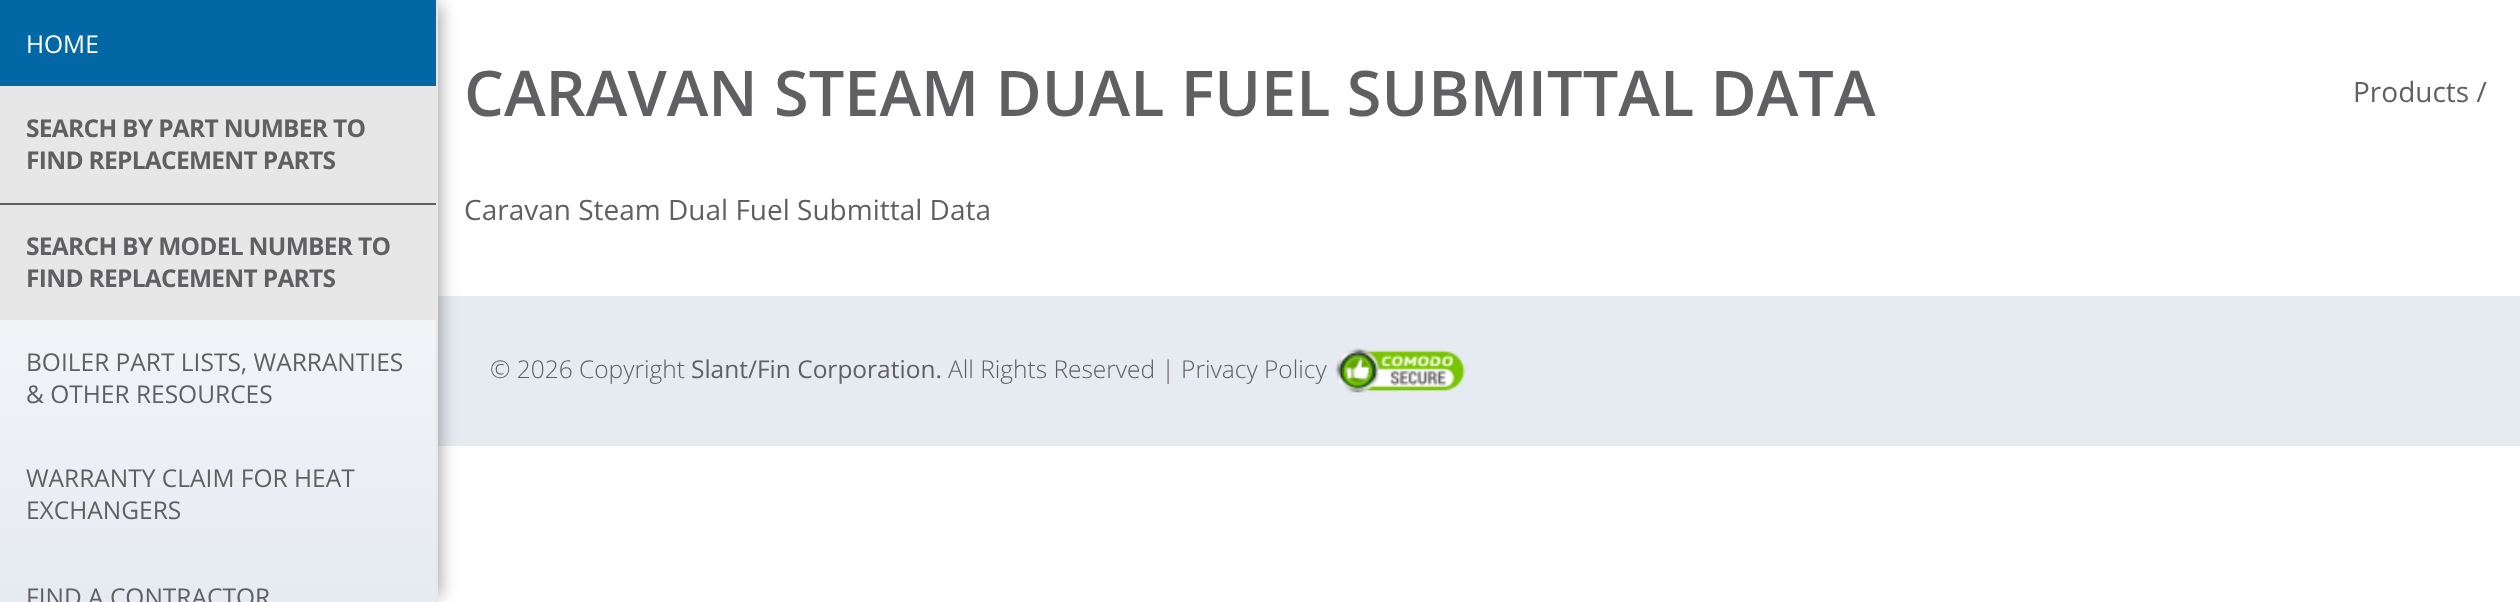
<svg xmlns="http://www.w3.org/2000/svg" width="2520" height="602">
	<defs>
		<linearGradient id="g1" gradientUnits="userSpaceOnUse" x1="218" y1="0" x2="218" y2="602"><stop offset="0" stop-color="#FFFFFF" /><stop offset="1" stop-color="#E6EAF1" /></linearGradient>
	</defs>
	<rect width="100%" height="100%" fill="#FFFFFF" />
	<rect x="438" y="296" width="2082" height="150" fill="#E6EAF1" />
	<rect x="12" y="5" width="427" height="592" fill="#605F61" fill-opacity="0.64" filter="blur(9px)" />
	<rect x="0" y="320" width="436" height="282" fill="url(#g1)" />
	<rect x="436" y="0" width="2" height="602" fill="#E7E7E7" />
	<rect x="0" y="0" width="436" height="86" fill="#0267A5" />
	<text x="26" y="53" font-family="Open Sans" font-size="24.5" fill="#FFFFFF">HOME</text>
	<rect x="0" y="86" width="436" height="117" fill="#E7E7E7" />
	<g font-family="Open Sans" font-size="24.5" font-weight="700" letter-spacing="-0.7" fill="#605F61">
		<text x="26" y="137">SEARCH BY PART NUMBER TO</text>
		<text x="26" y="169">FIND REPLACEMENT PARTS</text>
	</g>
	<rect x="0" y="203" width="436" height="2" fill="#605F61" />
	<rect x="0" y="205" width="436" height="115" fill="#E7E7E7" />
	<g font-family="Open Sans" font-size="24.5" font-weight="700" letter-spacing="-0.7" fill="#605F61">
		<text x="26" y="255">SEARCH BY MODEL NUMBER TO</text>
		<text x="26" y="287">FIND REPLACEMENT PARTS</text>
	</g>
	<g font-family="Open Sans" font-size="24.5" fill="#605F61">
		<text x="26" y="371">BOILER PART LISTS, WARRANTIES</text>
		<text x="26" y="403">&amp; OTHER RESOURCES</text>
		<text x="26" y="487">WARRANTY CLAIM FOR HEAT</text>
		<text x="26" y="519">EXCHANGERS</text>
		<text x="26" y="606">FIND A CONTRACTOR</text>
	</g>
	<text x="464" y="116" font-family="Open Sans" font-size="63" font-weight="600" fill="#605F61">CARAVAN STEAM DUAL FUEL SUBMITTAL DATA</text>
	<g font-family="Open Sans" font-size="28" fill="#605F61">
		<text x="2353" y="102">Products /</text>
		<text x="464" y="220">Caravan Steam Dual Fuel Submittal Data</text>
	</g>
	<text x="490" y="378" font-family="Open Sans" font-size="24.5" font-weight="300" fill="#605F61">© 2026 Copyright</text>
	<text x="691" y="378" font-family="Open Sans" font-size="24.5" fill="#605F61">Slant/Fin Corporation.</text>
	<text x="948" y="378" font-family="Open Sans" font-size="24.5" font-weight="300" fill="#605F61">All Rights Reserved | Privacy Policy</text>
	<image x="1335" y="348" width="131" height="45" href="assets/img1.png" />
</svg>
